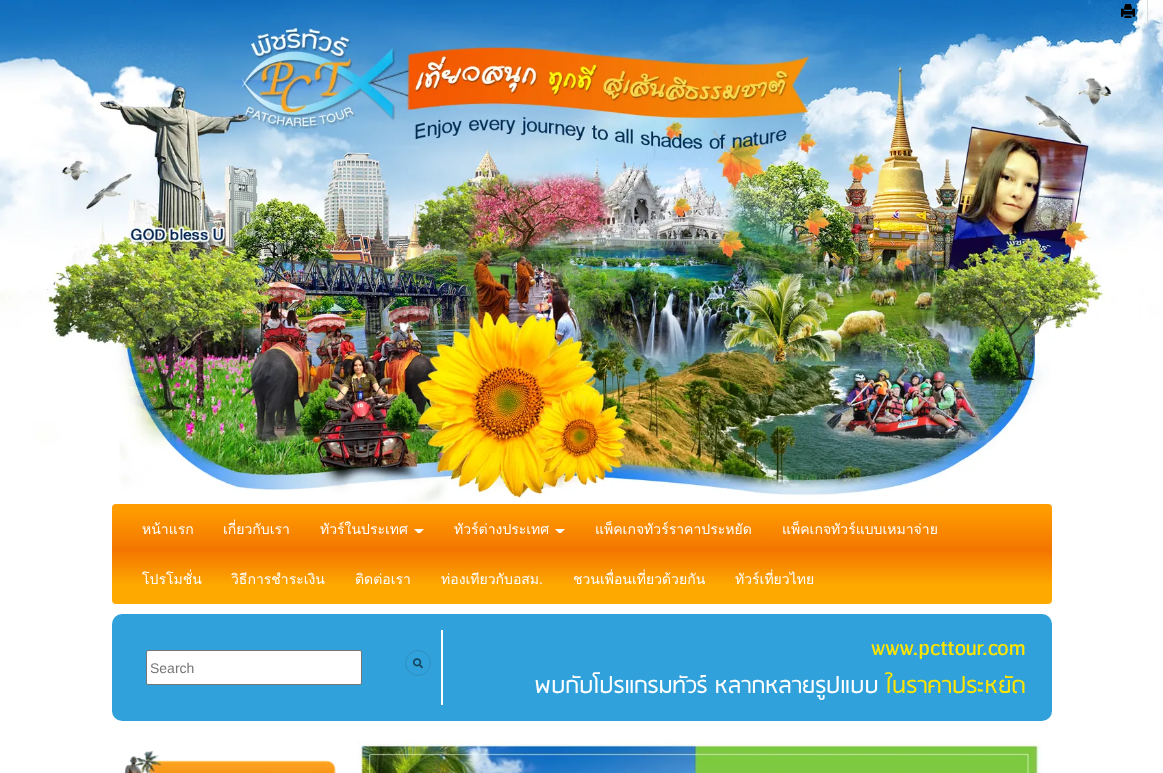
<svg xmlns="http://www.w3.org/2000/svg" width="1163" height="773">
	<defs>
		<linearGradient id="g1" gradientUnits="userSpaceOnUse" x1="582" y1="504" x2="582" y2="604"><stop offset="0" stop-color="#FF9D00" /><stop offset="0.05" stop-color="#FF9D00" /><stop offset="0.46" stop-color="#F37500" /><stop offset="0.82" stop-color="#FEA900" /><stop offset="1" stop-color="#FEA900" /></linearGradient>
	</defs>
	<rect width="100%" height="100%" fill="#FFFFFF" />
	<image x="0" y="0" width="1163" height="504" href="assets/img2.png" />
	<rect x="1147" y="0" width="1" height="24" fill="#DDDDDD" />
	<image x="1121" y="4" width="14" height="14" href="assets/img1.png" />
	<rect x="112" y="504" width="940" height="100" rx="4" fill="url(#g1)" />
	<g font-family="Loma" font-size="14" fill="#FFFFFF">
		<text x="142" y="534">หน้าแรก</text>
		<text x="223" y="534">เกี่ยวกับเรา</text>
		<text x="320" y="534">ทัวร์ในประเทศ</text>
	</g>
	<path d="M414 529H424L420 533H418Z" fill="#FFFFFF" />
	<text x="454" y="534" font-family="Loma" font-size="14" fill="#FFFFFF">ทัวร์ต่างประเทศ</text>
	<path d="M555 529H565L561 533H559Z" fill="#FFFFFF" />
	<g font-family="Loma" font-size="14" fill="#FFFFFF">
		<text x="595" y="534">แพ็คเกจทัวร์ราคาประหยัด</text>
		<text x="782" y="534">แพ็คเกจทัวร์แบบเหมาจ่าย</text>
		<text x="142" y="584">โปรโมชั่น</text>
		<text x="231" y="584">วิธีการชำระเงิน</text>
		<text x="355" y="584">ติดต่อเรา</text>
		<text x="441" y="584">ท่องเทียวกับอสม</text>
	</g>
	<text x="539" y="584" font-family="Liberation Sans" font-size="14" fill="#FFFFFF">.</text>
	<g font-family="Loma" font-size="14" fill="#FFFFFF">
		<text x="573" y="584">ชวนเพื่อนเที่ยวด้วยกัน</text>
		<text x="735" y="584">ทัวร์เที่ยวไทย</text>
	</g>
	<rect x="112" y="614" width="940" height="107" rx="10" fill="#30A1DB" />
	<rect x="146.5" y="650.5" width="215" height="34" rx="1.5" fill="#FFFFFF" stroke="#767676" />
	<text x="150" y="673" font-family="Liberation Sans" font-size="14" fill="#757575">Search</text>
	<circle cx="418" cy="663" r="12.5" fill="none" stroke="#2F8FC1" />
	<image x="413" y="658" width="10" height="11" href="assets/img3.png" />
	<rect x="441" y="630" width="2" height="75" fill="#FFFFFF" />
	<text x="871" y="655" font-family="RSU" font-size="26" fill="#FFE500">www.pcttour.com</text>
	<text x="534" y="693" font-family="RSU" font-size="26" fill="#FFFFFF">พบกับโปรแกรมทัวร์ หลากหลายรูปแบบ</text>
	<text x="886" y="693" font-family="RSU" font-size="26" fill="#FFE500">ในราคาประหยัด</text>
	<image x="124" y="750" width="212" height="23" href="assets/img4.png" />
	<image x="357" y="741" width="685" height="32" href="assets/img5.png" />
</svg>
